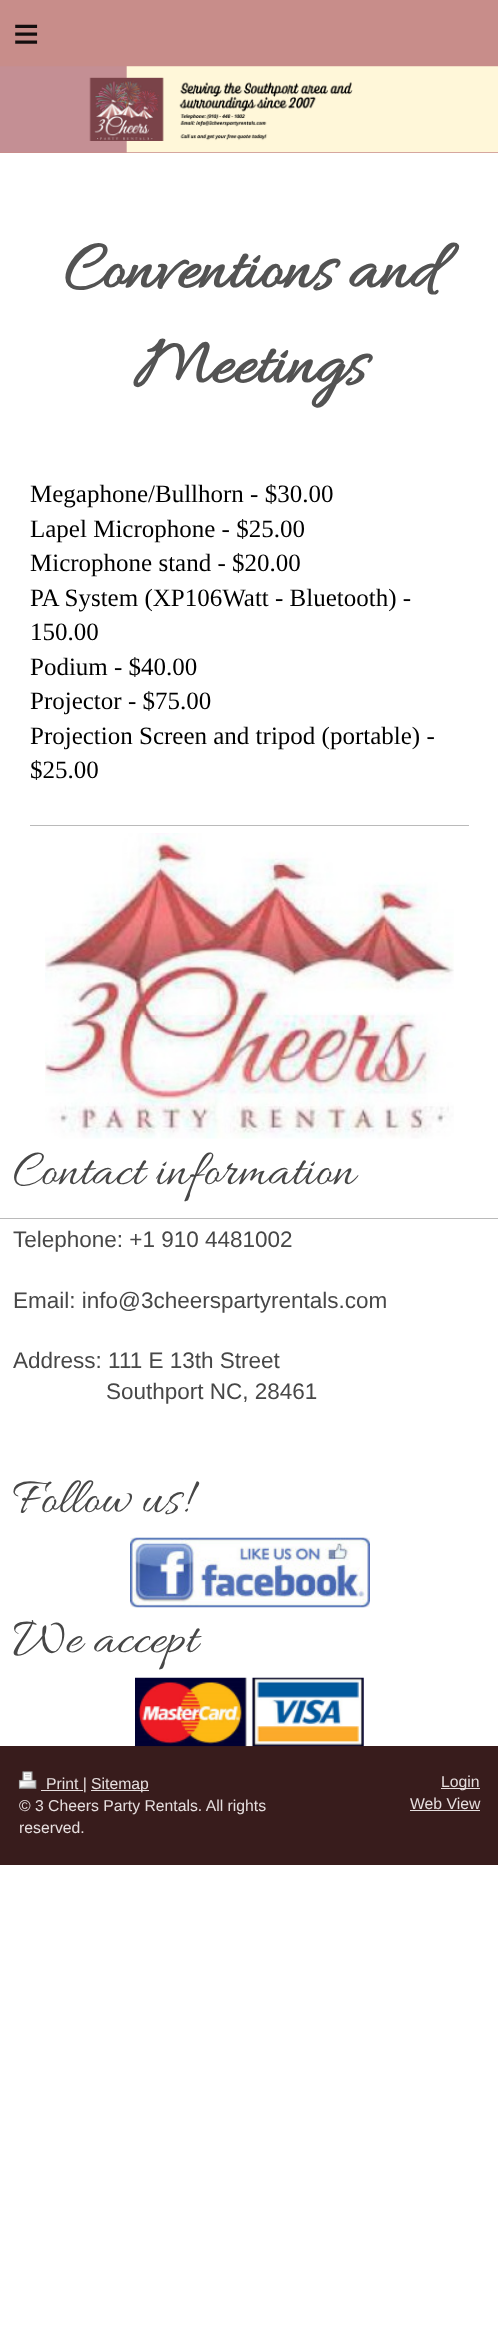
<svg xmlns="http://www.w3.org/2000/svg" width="498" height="2329">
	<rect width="100%" height="100%" fill="#FFFFFF" />
	<rect x="0" y="0" width="498" height="153" fill="#C88D8A" />
	<text x="13" y="49" font-family="Liberation Sans" font-size="45" letter-spacing="13" fill="#140E0E">≡</text>
	<image x="0" y="66" width="498" height="87" href="assets/img1.png" />
	<g font-family="Allura" font-size="70" font-weight="700" fill="#535353">
		<text x="64" y="286">Conventions and</text>
		<text x="134" y="381">Meetings</text>
	</g>
	<g font-family="Liberation Serif" font-size="25" fill="#000000">
		<text x="30" y="502">Megaphone/Bullhorn - $30.00</text>
		<text x="30" y="537">Lapel Microphone - $25.00</text>
		<text x="30" y="571">Microphone stand - $20.00</text>
		<text x="30" y="606">PA System (XP106Watt - Bluetooth) -</text>
		<text x="30" y="640">150.00</text>
		<text x="30" y="675">Podium - $40.00</text>
		<text x="30" y="709">Projector - $75.00</text>
		<text x="30" y="744">Projection Screen and tripod (portable) -</text>
		<text x="30" y="778">$25.00</text>
	</g>
	<rect x="30" y="825" width="439" height="1" fill="#BABABA" />
	<image x="45" y="833" width="409" height="306" href="assets/img2.png" />
	<text x="13" y="1183" font-family="Allura" font-size="52" fill="#474747">Contact information</text>
	<rect x="0" y="1218" width="498" height="1" fill="#BABABA" />
	<g font-family="Liberation Sans" font-size="22.5" fill="#474747">
		<text x="13" y="1247">Telephone: +1 910 4481002</text>
		<text x="13" y="1308">Email: info@3cheerspartyrentals.com</text>
		<text x="13" y="1368">Address: 111 E 13th Street</text>
		<text x="106" y="1399">Southport NC, 28461</text>
	</g>
	<text x="13" y="1511" font-family="Allura" font-size="52" fill="#474747">Follow us!</text>
	<image x="130" y="1537" width="240" height="71" href="assets/img3.png" />
	<text x="13" y="1651" font-family="Allura" font-size="52" fill="#474747">We accept</text>
	<rect x="0" y="1746" width="498" height="119" fill="#381C1C" />
	<image x="135" y="1677" width="229" height="70" href="assets/img4.png" />
	<image x="18" y="1771" width="19" height="18" href="assets/img5.png" />
	<rect x="41" y="1790" width="42" height="1" fill="#E6DEDE" />
	<text x="46" y="1789" font-family="Liberation Sans" font-size="15.75" fill="#E6DEDE">Print |</text>
	<rect x="91" y="1790" width="58" height="1" fill="#E6DEDE" />
	<g font-family="Liberation Sans" font-size="15.75" fill="#E6DEDE">
		<text x="91" y="1789">Sitemap</text>
		<text x="19" y="1811">© 3 Cheers Party Rentals. All rights</text>
		<text x="19" y="1833">reserved.</text>
	</g>
	<rect x="441" y="1788" width="39" height="1" fill="#E6DEDE" />
	<g font-family="Liberation Sans" font-size="15.75" fill="#E6DEDE">
		<text x="441" y="1787">Login</text>
		<text x="410" y="1809">Web View</text>
	</g>
	<rect x="410" y="1810" width="70" height="1" fill="#E6DEDE" />
</svg>
